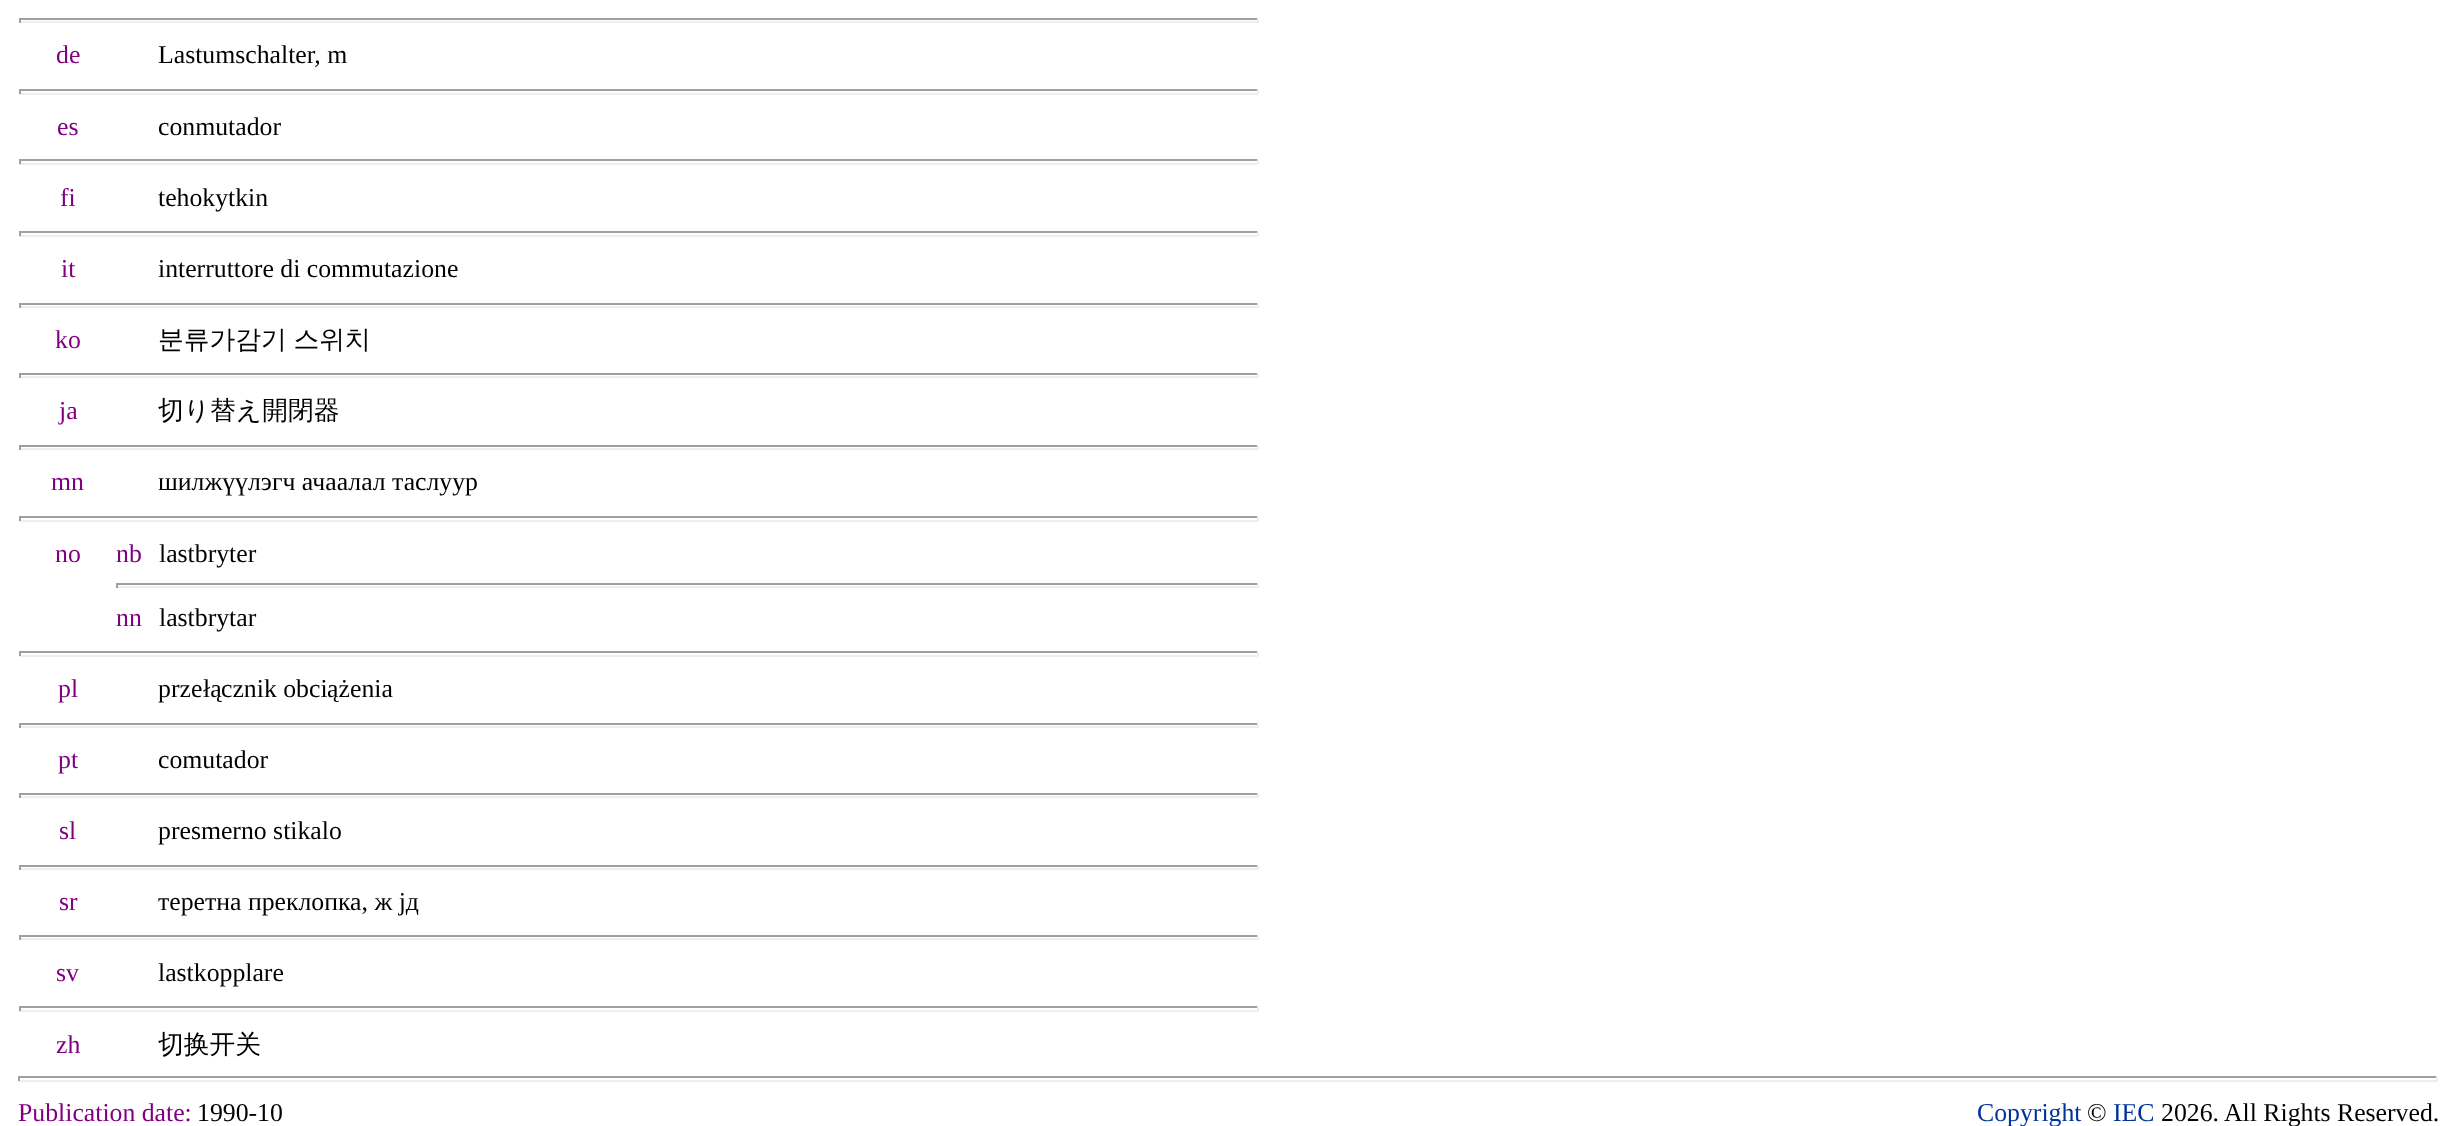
<svg xmlns="http://www.w3.org/2000/svg" width="2454" height="1126">
	<rect width="100%" height="100%" fill="#FFFFFF" />
	<rect x="19" y="18" width="1239" height="2" fill="#9F9F9F" />
	<rect x="1257" y="18" width="2" height="5" fill="#EEEEEE" />
	<rect x="19" y="21" width="1239" height="2" fill="#EEEEEE" />
	<rect x="19" y="18" width="2" height="5" fill="#9F9F9F" />
	<text x="56" y="63" font-family="Liberation Serif" font-size="25.75" fill="#800080">de</text>
	<text x="158" y="63" font-family="Liberation Serif" font-size="25.75" fill="#000000">Lastumschalter, m</text>
	<rect x="19" y="89" width="1239" height="2" fill="#9F9F9F" />
	<rect x="1257" y="89" width="2" height="5" fill="#EEEEEE" />
	<rect x="19" y="93" width="1239" height="2" fill="#EEEEEE" />
	<rect x="19" y="89" width="2" height="5" fill="#9F9F9F" />
	<text x="57" y="135" font-family="Liberation Serif" font-size="25.75" fill="#800080">es</text>
	<text x="158" y="135" font-family="Liberation Serif" font-size="25.75" fill="#000000">conmutador</text>
	<rect x="19" y="159" width="1239" height="2" fill="#9F9F9F" />
	<rect x="1257" y="159" width="2" height="5" fill="#EEEEEE" />
	<rect x="19" y="163" width="1239" height="2" fill="#EEEEEE" />
	<rect x="19" y="159" width="2" height="5" fill="#9F9F9F" />
	<text x="60" y="206" font-family="Liberation Serif" font-size="25.75" fill="#800080">fi</text>
	<text x="158" y="206" font-family="Liberation Serif" font-size="25.75" fill="#000000">tehokytkin</text>
	<rect x="19" y="231" width="1239" height="2" fill="#9F9F9F" />
	<rect x="1257" y="231" width="2" height="5" fill="#EEEEEE" />
	<rect x="19" y="235" width="1239" height="2" fill="#EEEEEE" />
	<rect x="19" y="231" width="2" height="5" fill="#9F9F9F" />
	<text x="61" y="277" font-family="Liberation Serif" font-size="25.75" fill="#800080">it</text>
	<text x="158" y="277" font-family="Liberation Serif" font-size="25.75" fill="#000000">interruttore di commutazione</text>
	<rect x="19" y="303" width="1239" height="2" fill="#9F9F9F" />
	<rect x="1257" y="303" width="2" height="5" fill="#EEEEEE" />
	<rect x="19" y="306" width="1239" height="2" fill="#EEEEEE" />
	<rect x="19" y="303" width="2" height="5" fill="#9F9F9F" />
	<text x="55" y="348" font-family="Liberation Serif" font-size="25.75" fill="#800080">ko</text>
	<text x="158" y="348" word-spacing="-1" font-family="WenQuanYi Zen Hei" font-size="25.75" font-weight="500" fill="#000000">분류가감기 스위치</text>
	<rect x="19" y="373" width="1239" height="2" fill="#9F9F9F" />
	<rect x="1257" y="373" width="2" height="5" fill="#EEEEEE" />
	<rect x="19" y="376" width="1239" height="2" fill="#EEEEEE" />
	<rect x="19" y="373" width="2" height="5" fill="#9F9F9F" />
	<text x="59" y="419" font-family="Liberation Serif" font-size="25.75" fill="#800080">ja</text>
	<text x="158" y="419" font-family="WenQuanYi Zen Hei" font-size="25.75" font-weight="500" fill="#000000">切り替え開閉器</text>
	<rect x="19" y="445" width="1239" height="2" fill="#9F9F9F" />
	<rect x="1257" y="445" width="2" height="5" fill="#EEEEEE" />
	<rect x="19" y="448" width="1239" height="2" fill="#EEEEEE" />
	<rect x="19" y="445" width="2" height="5" fill="#9F9F9F" />
	<text x="51" y="490" font-family="Liberation Serif" font-size="25.75" fill="#800080">mn</text>
	<text x="158" y="490" font-family="'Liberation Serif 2'" font-size="25.75" fill="#000000">шилжүүлэгч ачаалал таслуур</text>
	<rect x="19" y="516" width="1239" height="2" fill="#9F9F9F" />
	<rect x="1257" y="516" width="2" height="5" fill="#EEEEEE" />
	<rect x="19" y="520" width="1239" height="2" fill="#EEEEEE" />
	<rect x="19" y="516" width="2" height="5" fill="#9F9F9F" />
	<g font-family="Liberation Serif" font-size="25.75" fill="#800080">
		<text x="55" y="562">no</text>
		<text x="116" y="562">nb</text>
	</g>
	<text x="159" y="562" font-family="Liberation Serif" font-size="25.75" fill="#000000">lastbryter</text>
	<rect x="116" y="583" width="1142" height="2" fill="#9F9F9F" />
	<rect x="1257" y="583" width="2" height="5" fill="#EEEEEE" />
	<rect x="116" y="586" width="1142" height="2" fill="#EEEEEE" />
	<rect x="116" y="583" width="2" height="5" fill="#9F9F9F" />
	<text x="116" y="626" font-family="Liberation Serif" font-size="25.75" fill="#800080">nn</text>
	<text x="159" y="626" font-family="Liberation Serif" font-size="25.75" fill="#000000">lastbrytar</text>
	<rect x="19" y="651" width="1239" height="2" fill="#9F9F9F" />
	<rect x="1257" y="651" width="2" height="5" fill="#EEEEEE" />
	<rect x="19" y="655" width="1239" height="2" fill="#EEEEEE" />
	<rect x="19" y="651" width="2" height="5" fill="#9F9F9F" />
	<text x="58" y="697" font-family="Liberation Serif" font-size="25.75" fill="#800080">pl</text>
	<text x="158" y="697" font-family="Liberation Serif" font-size="25.75" fill="#000000">prze</text>
	<text x="203" y="697" font-family="'Liberation Serif 2'" font-size="25.75" fill="#000000">łą</text>
	<text x="221" y="697" font-family="Liberation Serif" font-size="25.75" fill="#000000">cznik obci</text>
	<text x="327" y="697" font-family="'Liberation Serif 2'" font-size="25.75" fill="#000000">ąż</text>
	<text x="350" y="697" font-family="Liberation Serif" font-size="25.75" fill="#000000">enia</text>
	<rect x="19" y="723" width="1239" height="2" fill="#9F9F9F" />
	<rect x="1257" y="723" width="2" height="5" fill="#EEEEEE" />
	<rect x="19" y="726" width="1239" height="2" fill="#EEEEEE" />
	<rect x="19" y="723" width="2" height="5" fill="#9F9F9F" />
	<text x="58" y="768" font-family="Liberation Serif" font-size="25.75" fill="#800080">pt</text>
	<text x="158" y="768" font-family="Liberation Serif" font-size="25.75" fill="#000000">comutador</text>
	<rect x="19" y="793" width="1239" height="2" fill="#9F9F9F" />
	<rect x="1257" y="793" width="2" height="5" fill="#EEEEEE" />
	<rect x="19" y="796" width="1239" height="2" fill="#EEEEEE" />
	<rect x="19" y="793" width="2" height="5" fill="#9F9F9F" />
	<text x="59" y="839" font-family="Liberation Serif" font-size="25.75" fill="#800080">sl</text>
	<text x="158" y="839" font-family="Liberation Serif" font-size="25.75" fill="#000000">presmerno stikalo</text>
	<rect x="19" y="865" width="1239" height="2" fill="#9F9F9F" />
	<rect x="1257" y="865" width="2" height="5" fill="#EEEEEE" />
	<rect x="19" y="868" width="1239" height="2" fill="#EEEEEE" />
	<rect x="19" y="865" width="2" height="5" fill="#9F9F9F" />
	<text x="59" y="910" font-family="Liberation Serif" font-size="25.75" fill="#800080">sr</text>
	<text x="158" y="910" font-family="'Liberation Serif 2'" font-size="25.75" fill="#000000">теретна преклопка, ж јд</text>
	<rect x="19" y="935" width="1239" height="2" fill="#9F9F9F" />
	<rect x="1257" y="935" width="2" height="5" fill="#EEEEEE" />
	<rect x="19" y="938" width="1239" height="2" fill="#EEEEEE" />
	<rect x="19" y="935" width="2" height="5" fill="#9F9F9F" />
	<text x="56" y="981" font-family="Liberation Serif" font-size="25.75" fill="#800080">sv</text>
	<text x="158" y="981" font-family="Liberation Serif" font-size="25.75" fill="#000000">lastkopplare</text>
	<rect x="19" y="1006" width="1239" height="2" fill="#9F9F9F" />
	<rect x="1257" y="1006" width="2" height="5" fill="#EEEEEE" />
	<rect x="19" y="1010" width="1239" height="2" fill="#EEEEEE" />
	<rect x="19" y="1006" width="2" height="5" fill="#9F9F9F" />
	<text x="56" y="1053" font-family="Liberation Serif" font-size="25.75" fill="#800080">zh</text>
	<text x="158" y="1053" font-family="WenQuanYi Zen Hei" font-size="25.75" font-weight="500" fill="#000000">切换开关</text>
	<rect x="18" y="1076" width="2420" height="2" fill="#9F9F9F" />
	<rect x="2436" y="1076" width="2" height="5" fill="#EEEEEE" />
	<rect x="18" y="1080" width="2420" height="2" fill="#EEEEEE" />
	<rect x="18" y="1076" width="2" height="5" fill="#9F9F9F" />
	<text x="18" y="1121" font-family="Liberation Serif" font-size="25.75" fill="#800080">Publication date:</text>
	<text x="197" y="1121" font-family="Liberation Serif" font-size="25.75" fill="#000000">1990-10</text>
	<text x="1977" y="1121" font-family="Liberation Serif" font-size="25.75" fill="#003399">Copyright</text>
	<text x="2087" y="1121" font-family="Liberation Serif" font-size="25.75" fill="#000000">©</text>
	<text x="2113" y="1121" font-family="Liberation Serif" font-size="25.75" fill="#003399">IEC</text>
	<text x="2161" y="1121" font-family="Liberation Serif" font-size="25.75" fill="#000000">2026. All Rights Reserved.</text>
</svg>
